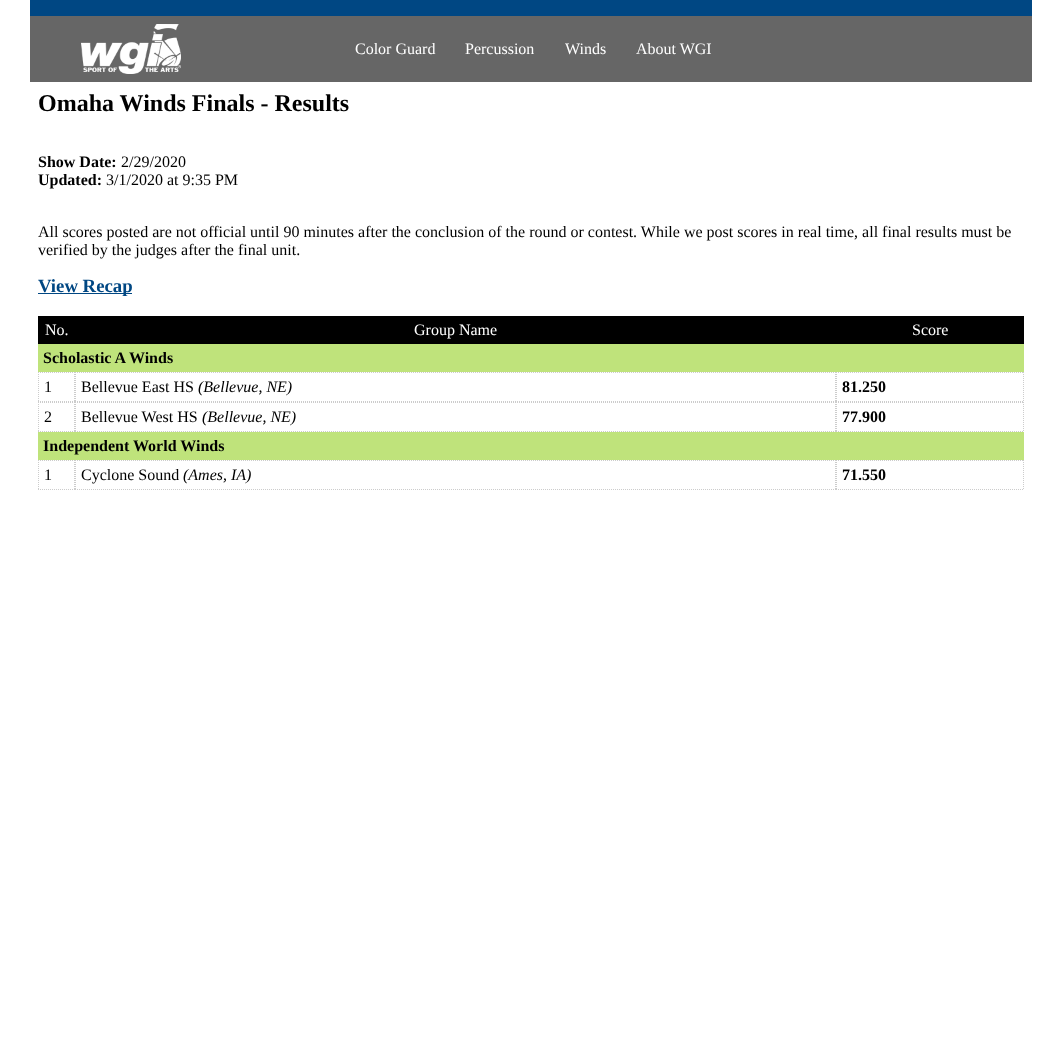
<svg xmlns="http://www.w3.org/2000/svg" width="1062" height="1059">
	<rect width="100%" height="100%" fill="#FFFFFF" />
	<rect x="30" y="0" width="1002" height="16" fill="#004783" />
	<rect x="30" y="16" width="1002" height="66" fill="#666666" />
	<image x="81" y="24" width="100" height="50" href="assets/img1.png" />
	<g font-family="Liberation Serif" font-size="16" fill="#FFFFFF">
		<text x="355" y="54">Color Guard</text>
		<text x="465" y="54">Percussion</text>
		<text x="565" y="54">Winds</text>
		<text x="636" y="54">About WGI</text>
	</g>
	<text x="38" y="111" font-family="Liberation Serif" font-size="24" font-weight="700" fill="#000000">Omaha Winds Finals - Results</text>
	<text x="38" y="167" font-family="Liberation Serif" font-size="16" font-weight="700" fill="#000000">Show Date:</text>
	<text x="121" y="167" font-family="Liberation Serif" font-size="16" fill="#000000">2/29/2020</text>
	<text x="38" y="185" font-family="Liberation Serif" font-size="16" font-weight="700" fill="#000000">Updated:</text>
	<g font-family="Liberation Serif" font-size="16" fill="#000000">
		<text x="106" y="185">3/1/2020 at 9:35 PM</text>
		<text x="38" y="237">All scores posted are not official until 90 minutes after the conclusion of the round or contest. While we post scores in real time, all final results must be</text>
		<text x="38" y="255">verified by the judges after the final unit.</text>
	</g>
	<rect x="38" y="293" width="94" height="1" fill="#004783" />
	<text x="38" y="292" font-family="Liberation Serif" font-size="18.75" font-weight="700" fill="#004783">View Recap</text>
	<rect x="38" y="316" width="986" height="28" fill="#000000" />
	<g font-family="Liberation Serif" font-size="16" fill="#FFFFFF">
		<text x="45" y="335">No.</text>
		<text x="414" y="335">Group Name</text>
		<text x="912" y="335">Score</text>
	</g>
	<rect x="38" y="344" width="986" height="28" fill="#BFE37B" />
	<text x="43" y="363" font-family="Liberation Serif" font-size="16" font-weight="700" fill="#000000">Scholastic A Winds</text>
	<path d="M38 372.5H75M74.5 372V402M38 401.5H75M38.5 372V402" fill="none" stroke="#CCCCCC" stroke-dasharray="1 1" />
	<text x="44" y="392" font-family="Liberation Serif" font-size="16" fill="#000000">1</text>
	<path d="M75 372.5H836" fill="none" stroke="#CCCCCC" stroke-dasharray="1 1" />
	<path d="M835.5 372V402" fill="none" stroke="#CCCCCC" stroke-dasharray="1 1" />
	<path d="M75 401.5H836" fill="none" stroke="#CCCCCC" stroke-dasharray="1 1" />
	<path d="M75.5 372V402" fill="none" stroke="#CCCCCC" stroke-dasharray="1 1" />
	<text x="81" y="392" font-family="Liberation Serif" font-size="16" fill="#000000">Bellevue East HS</text>
	<text x="198" y="392" font-family="Liberation Serif" font-size="16" font-style="italic" fill="#000000">(Bellevue, NE)</text>
	<path d="M836 372.5H1024" fill="none" stroke="#CCCCCC" stroke-dasharray="1 1" />
	<path d="M1023.5 372V402" fill="none" stroke="#CCCCCC" stroke-dasharray="1 1" />
	<path d="M836 401.5H1024" fill="none" stroke="#CCCCCC" stroke-dasharray="1 1" />
	<path d="M836.5 372V402" fill="none" stroke="#CCCCCC" stroke-dasharray="1 1" />
	<text x="842" y="392" font-family="Liberation Serif" font-size="16" font-weight="700" fill="#000000">81.250</text>
	<path d="M38 402.5H75M74.5 402V432M38 431.5H75M38.5 402V432" fill="none" stroke="#CCCCCC" stroke-dasharray="1 1" />
	<text x="44" y="422" font-family="Liberation Serif" font-size="16" fill="#000000">2</text>
	<path d="M75 402.5H836" fill="none" stroke="#CCCCCC" stroke-dasharray="1 1" />
	<path d="M835.5 402V432" fill="none" stroke="#CCCCCC" stroke-dasharray="1 1" />
	<path d="M75 431.5H836" fill="none" stroke="#CCCCCC" stroke-dasharray="1 1" />
	<path d="M75.5 402V432" fill="none" stroke="#CCCCCC" stroke-dasharray="1 1" />
	<text x="81" y="422" font-family="Liberation Serif" font-size="16" fill="#000000">Bellevue West HS</text>
	<text x="202" y="422" font-family="Liberation Serif" font-size="16" font-style="italic" fill="#000000">(Bellevue, NE)</text>
	<path d="M836 402.5H1024" fill="none" stroke="#CCCCCC" stroke-dasharray="1 1" />
	<path d="M1023.5 402V432" fill="none" stroke="#CCCCCC" stroke-dasharray="1 1" />
	<path d="M836 431.5H1024" fill="none" stroke="#CCCCCC" stroke-dasharray="1 1" />
	<path d="M836.5 402V432" fill="none" stroke="#CCCCCC" stroke-dasharray="1 1" />
	<text x="842" y="422" font-family="Liberation Serif" font-size="16" font-weight="700" fill="#000000">77.900</text>
	<rect x="38" y="432" width="986" height="28" fill="#BFE37B" />
	<text x="43" y="451" font-family="Liberation Serif" font-size="16" font-weight="700" fill="#000000">Independent World Winds</text>
	<path d="M38 460.5H75M74.5 460V490M38 489.5H75M38.5 460V490" fill="none" stroke="#CCCCCC" stroke-dasharray="1 1" />
	<text x="44" y="480" font-family="Liberation Serif" font-size="16" fill="#000000">1</text>
	<path d="M75 460.5H836" fill="none" stroke="#CCCCCC" stroke-dasharray="1 1" />
	<path d="M835.5 460V490" fill="none" stroke="#CCCCCC" stroke-dasharray="1 1" />
	<path d="M75 489.5H836" fill="none" stroke="#CCCCCC" stroke-dasharray="1 1" />
	<path d="M75.5 460V490" fill="none" stroke="#CCCCCC" stroke-dasharray="1 1" />
	<text x="81" y="480" font-family="Liberation Serif" font-size="16" fill="#000000">Cyclone Sound</text>
	<text x="183" y="480" font-family="Liberation Serif" font-size="16" font-style="italic" fill="#000000">(Ames, IA)</text>
	<path d="M836 460.5H1024" fill="none" stroke="#CCCCCC" stroke-dasharray="1 1" />
	<path d="M1023.5 460V490" fill="none" stroke="#CCCCCC" stroke-dasharray="1 1" />
	<path d="M836 489.5H1024" fill="none" stroke="#CCCCCC" stroke-dasharray="1 1" />
	<path d="M836.5 460V490" fill="none" stroke="#CCCCCC" stroke-dasharray="1 1" />
	<text x="842" y="480" font-family="Liberation Serif" font-size="16" font-weight="700" fill="#000000">71.550</text>
</svg>
